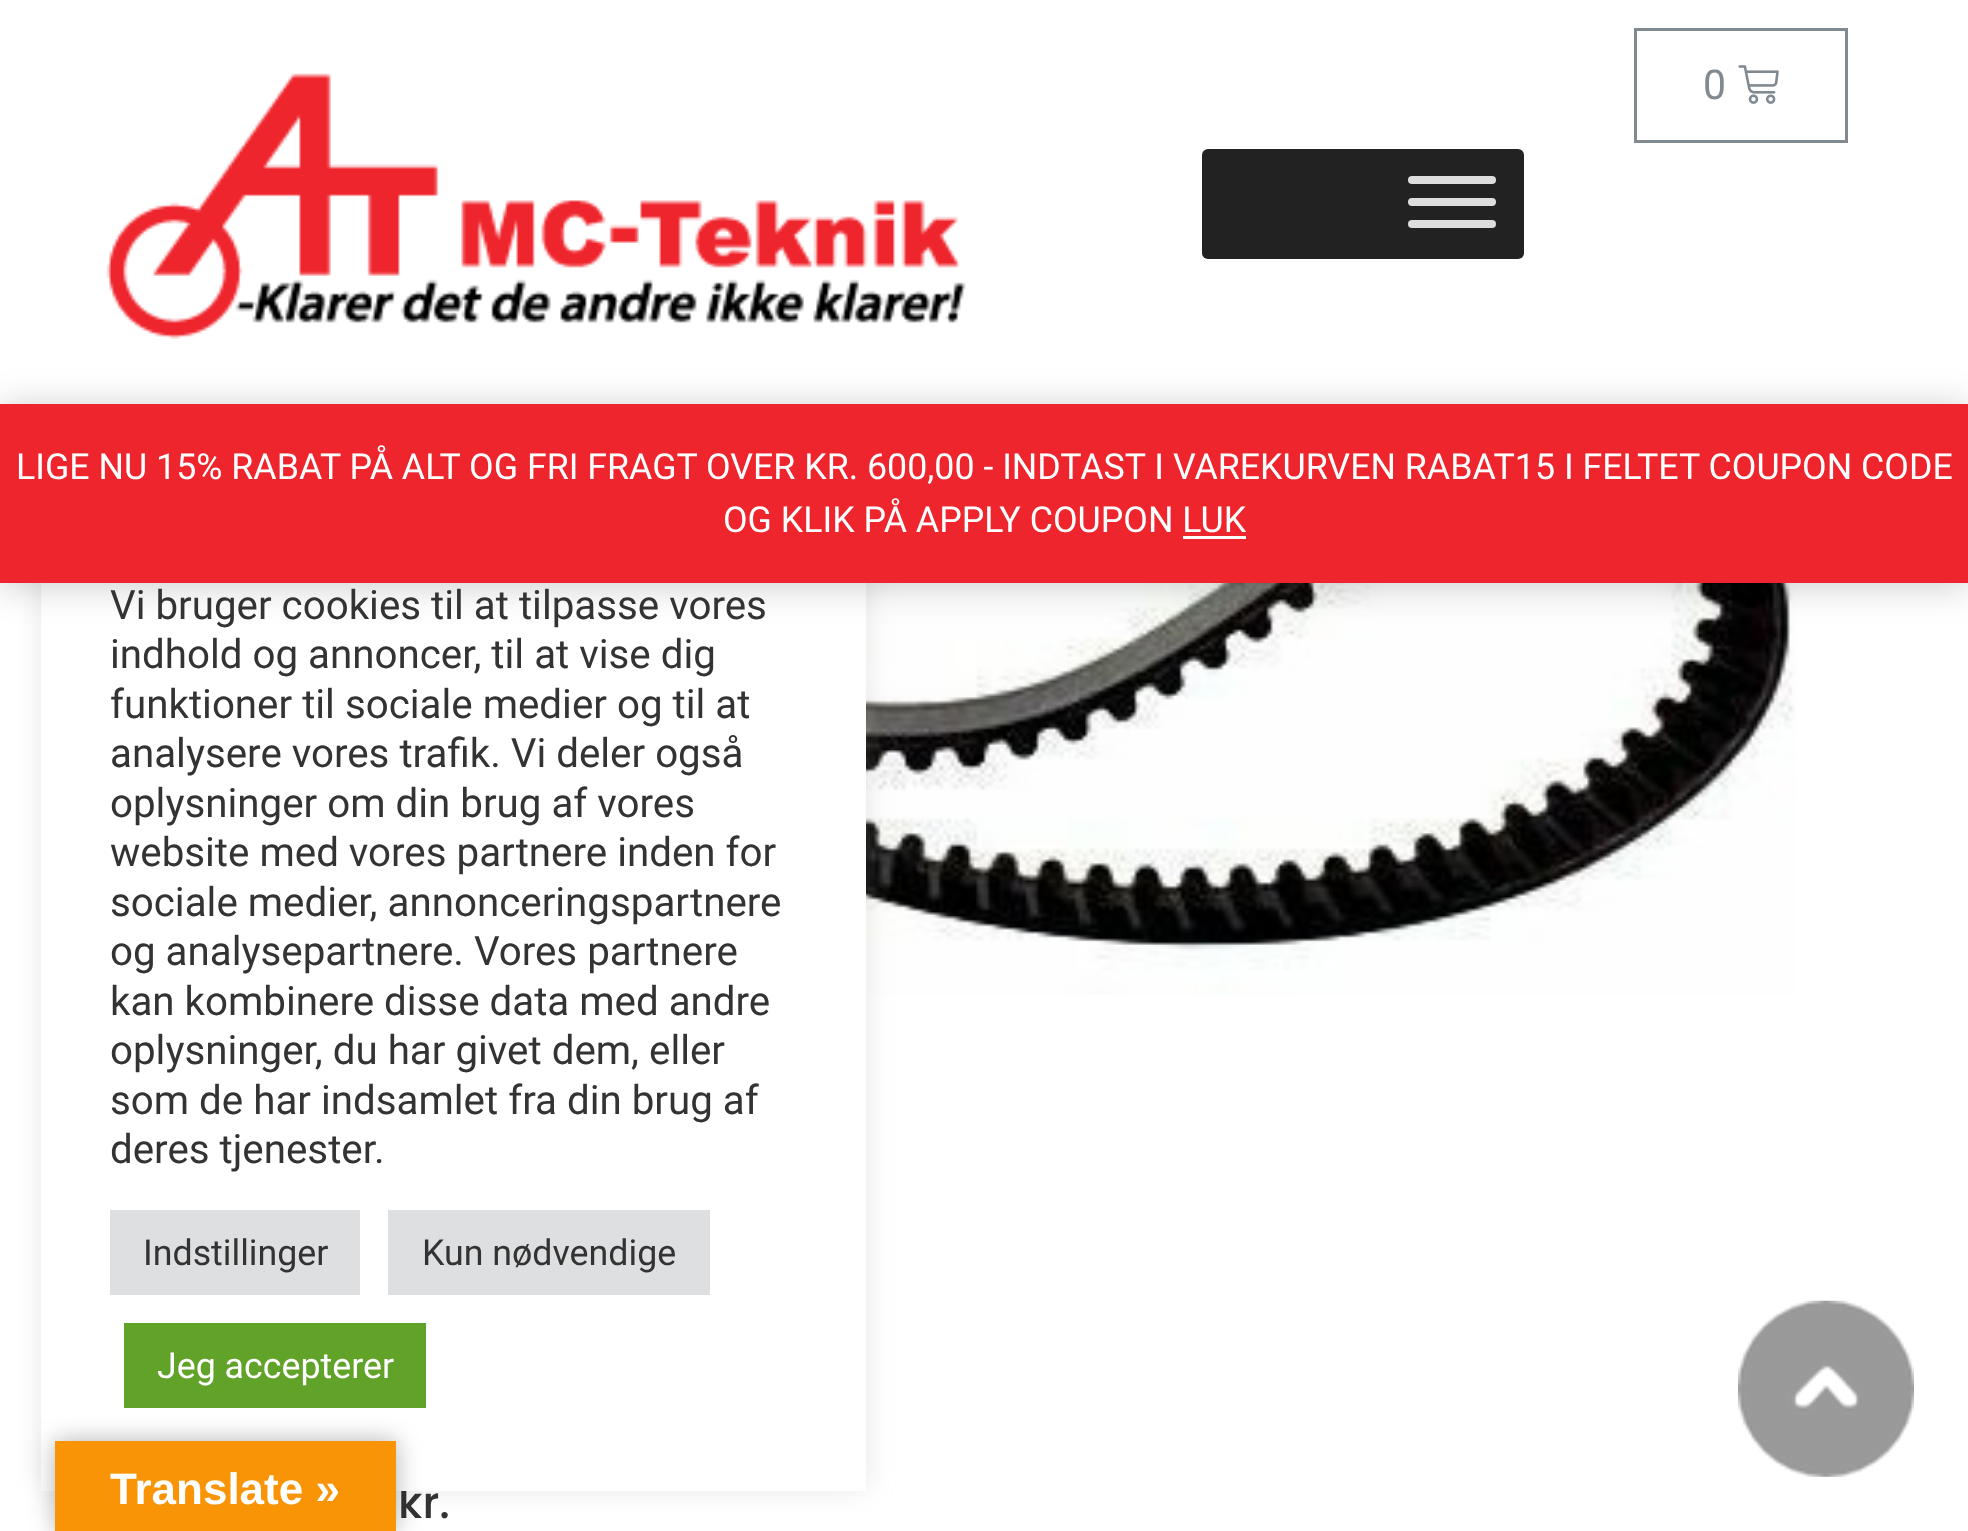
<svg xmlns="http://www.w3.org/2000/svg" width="1968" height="1531">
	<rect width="100%" height="100%" fill="#FFFFFF" />
	<image x="106" y="73" width="860" height="266" href="assets/img1.png" />
	<rect x="1202" y="149" width="322" height="110" rx="6" fill="#222222" />
	<rect x="1408" y="176" width="88" height="8" rx="4" fill="#DDDDDD" />
	<rect x="1408" y="198" width="88" height="8" rx="4" fill="#DDDDDD" />
	<rect x="1408" y="220" width="88" height="8" rx="4" fill="#DDDDDD" />
	<rect x="1635.5" y="29.5" width="211" height="112" fill="none" stroke="#818A91" stroke-width="3" />
	<text x="1703" y="99" font-family="Roboto" font-size="41" fill="#818A91">0</text>
	<image x="1738" y="65" width="41" height="39" href="assets/img2.png" />
	<image x="866" y="583" width="930" height="412" href="assets/img4.png" />
	<rect x="41" y="443" width="825" height="1045" fill="#ACABAB" fill-opacity="0.3" filter="blur(14px)" />
	<text x="398" y="1518" font-family="Poppins" font-size="44" font-weight="500" fill="#333333">kr.</text>
	<rect x="41" y="583" width="825" height="908" fill="#FFFFFF" />
	<rect x="0" y="407" width="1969" height="179" fill="#000000" fill-opacity="0.2" filter="blur(18px)" />
	<rect x="0" y="404" width="1968" height="179" fill="#EF252D" />
	<g font-family="Roboto" font-size="35.75" fill="#FFFFFF">
		<text x="16" y="479">LIGE NU 15% RABAT PÅ ALT OG FRI FRAGT OVER KR. 600,00 - INDTAST I VAREKURVEN RABAT15 I FELTET COUPON CODE</text>
		<text x="723" y="532">OG KLIK PÅ APPLY COUPON LUK</text>
	</g>
	<rect x="1183" y="536" width="63" height="3" fill="#FCFBFE" />
	<g font-family="Roboto" font-size="40.3" fill="#333333">
		<text x="110" y="619">Vi bruger cookies til at tilpasse vores</text>
		<text x="110" y="668">indhold og annoncer, til at vise dig</text>
		<text x="110" y="718">funktioner til sociale medier og til at</text>
		<text x="110" y="767">analysere vores trafik. Vi deler også</text>
		<text x="110" y="817">oplysninger om din brug af vores</text>
		<text x="110" y="866">website med vores partnere inden for</text>
		<text x="110" y="916">sociale medier, annonceringspartnere</text>
		<text x="110" y="965">og analysepartnere. Vores partnere</text>
		<text x="110" y="1015">kan kombinere disse data med andre</text>
		<text x="110" y="1064">oplysninger, du har givet dem, eller</text>
		<text x="110" y="1114">som de har indsamlet fra din brug af</text>
		<text x="110" y="1163">deres tjenester.</text>
	</g>
	<rect x="110" y="1210" width="250" height="85" fill="#DEDFE0" />
	<text x="143" y="1265" font-family="Roboto" font-size="35.75" fill="#333333">Indstillinger</text>
	<rect x="388" y="1210" width="322" height="85" fill="#DEDFE0" />
	<text x="422" y="1265" font-family="Roboto" font-size="35.75" fill="#333333">Kun nødvendige</text>
	<rect x="124" y="1323" width="302" height="85" fill="#61A229" />
	<text x="157" y="1378" font-family="Roboto" font-size="35.75" fill="#FFFFFF">Jeg accepterer</text>
	<image x="1738" y="1300" width="176" height="177" href="assets/img3.png" />
	<rect x="55" y="1441" width="341" height="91" fill="#000000" fill-opacity="0.3" filter="blur(12.5px)" />
	<rect x="55" y="1441" width="341" height="90" fill="#F89406" />
	<text x="110" y="1504" font-family="Liberation Sans" font-size="44" font-weight="700" fill="#FFFFFF">Translate »</text>
</svg>
